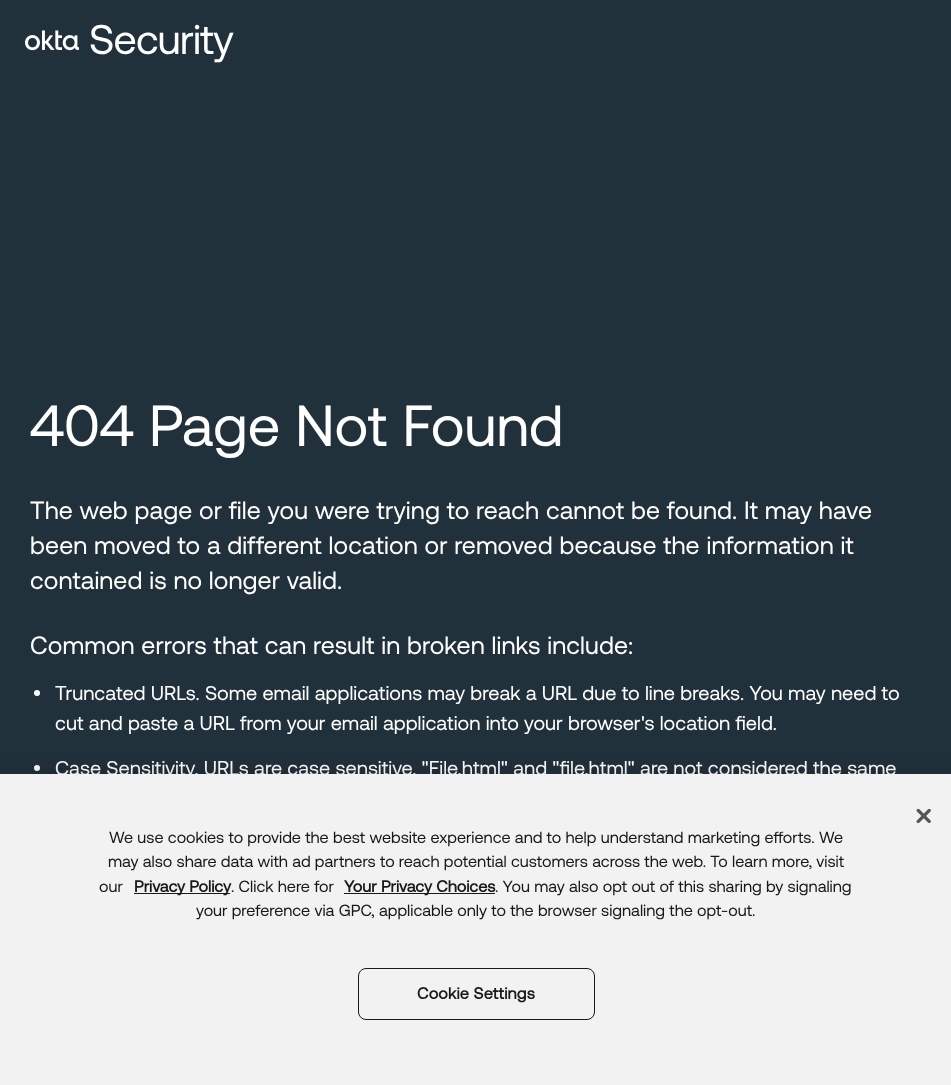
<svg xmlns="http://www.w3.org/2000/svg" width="951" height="1085">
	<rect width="100%" height="100%" fill="#21313B" />
	<image x="25" y="30" width="54" height="21" href="assets/img1.png" />
	<text x="89" y="54" font-family="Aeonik" font-size="41.5" letter-spacing="-0.75" fill="#FFFFFF">Security</text>
	<text x="30" y="446" font-family="Aeonik" font-size="58" fill="#FFFFFF">404 Page Not Found</text>
	<g font-family="Aeonik" font-size="25" letter-spacing="0.12" fill="#FFFFFF">
		<text x="30" y="519">The web page or file you were trying to reach cannot be found. It may have</text>
		<text x="30" y="554">been moved to a different location or removed because the information it</text>
		<text x="30" y="589">contained is no longer valid.</text>
		<text x="30" y="654">Common errors that can result in broken links include:</text>
	</g>
	<circle cx="37" cy="693" r="3" fill="#FFFFFF" />
	<g font-family="Aeonik" font-size="20" fill="#FFFFFF">
		<text x="55" y="700">Truncated URLs. Some email applications may break a URL due to line breaks. You may need to</text>
		<text x="55" y="730">cut and paste a URL from your email application into your browser's location field.</text>
	</g>
	<circle cx="37" cy="768" r="3" fill="#FFFFFF" />
	<text x="55" y="775" font-family="Aeonik" font-size="20" fill="#FFFFFF">Case Sensitivity. URLs are case sensitive. "File.html" and "file.html" are not considered the same</text>
	<rect x="0" y="774" width="951" height="311" fill="#000000" fill-opacity="0.2" filter="blur(11px)" />
	<rect x="0" y="774" width="951" height="311" fill="#F2F2F2" />
	<image x="916" y="809" width="15" height="14" href="assets/img2.png" />
	<g font-family="Aeonik" font-size="16.25" fill="#191919">
		<text x="109" y="843">We use cookies to provide the best website experience and to help understand marketing efforts. We</text>
		<text x="108" y="867">may also share data with ad partners to reach potential customers across the web. To learn more, visit</text>
		<text x="99" y="892">our</text>
	</g>
	<rect x="134" y="893" width="96" height="1" fill="#191919" />
	<text x="134" y="892" font-family="Aeonik" font-size="16.25" font-weight="700" fill="#191919">Privacy Policy</text>
	<text x="231" y="892" font-family="Aeonik" font-size="16.25" fill="#191919">. Click here for</text>
	<rect x="344" y="893" width="151" height="1" fill="#191919" />
	<text x="344" y="892" font-family="Aeonik" font-size="16.25" font-weight="700" fill="#191919">Your Privacy Choices</text>
	<g font-family="Aeonik" font-size="16.25" fill="#191919">
		<text x="495" y="892">. You may also opt out of this sharing by signaling</text>
		<text x="196" y="916">your preference via GPC, applicable only to the browser signaling the opt-out.</text>
	</g>
	<rect x="358.5" y="968.5" width="236" height="51" rx="7.5" fill="none" stroke="#191919" />
	<text x="417" y="999" font-family="Aeonik" font-size="16.25" font-weight="700" letter-spacing="0.2" fill="#191919">Cookie Settings</text>
</svg>
